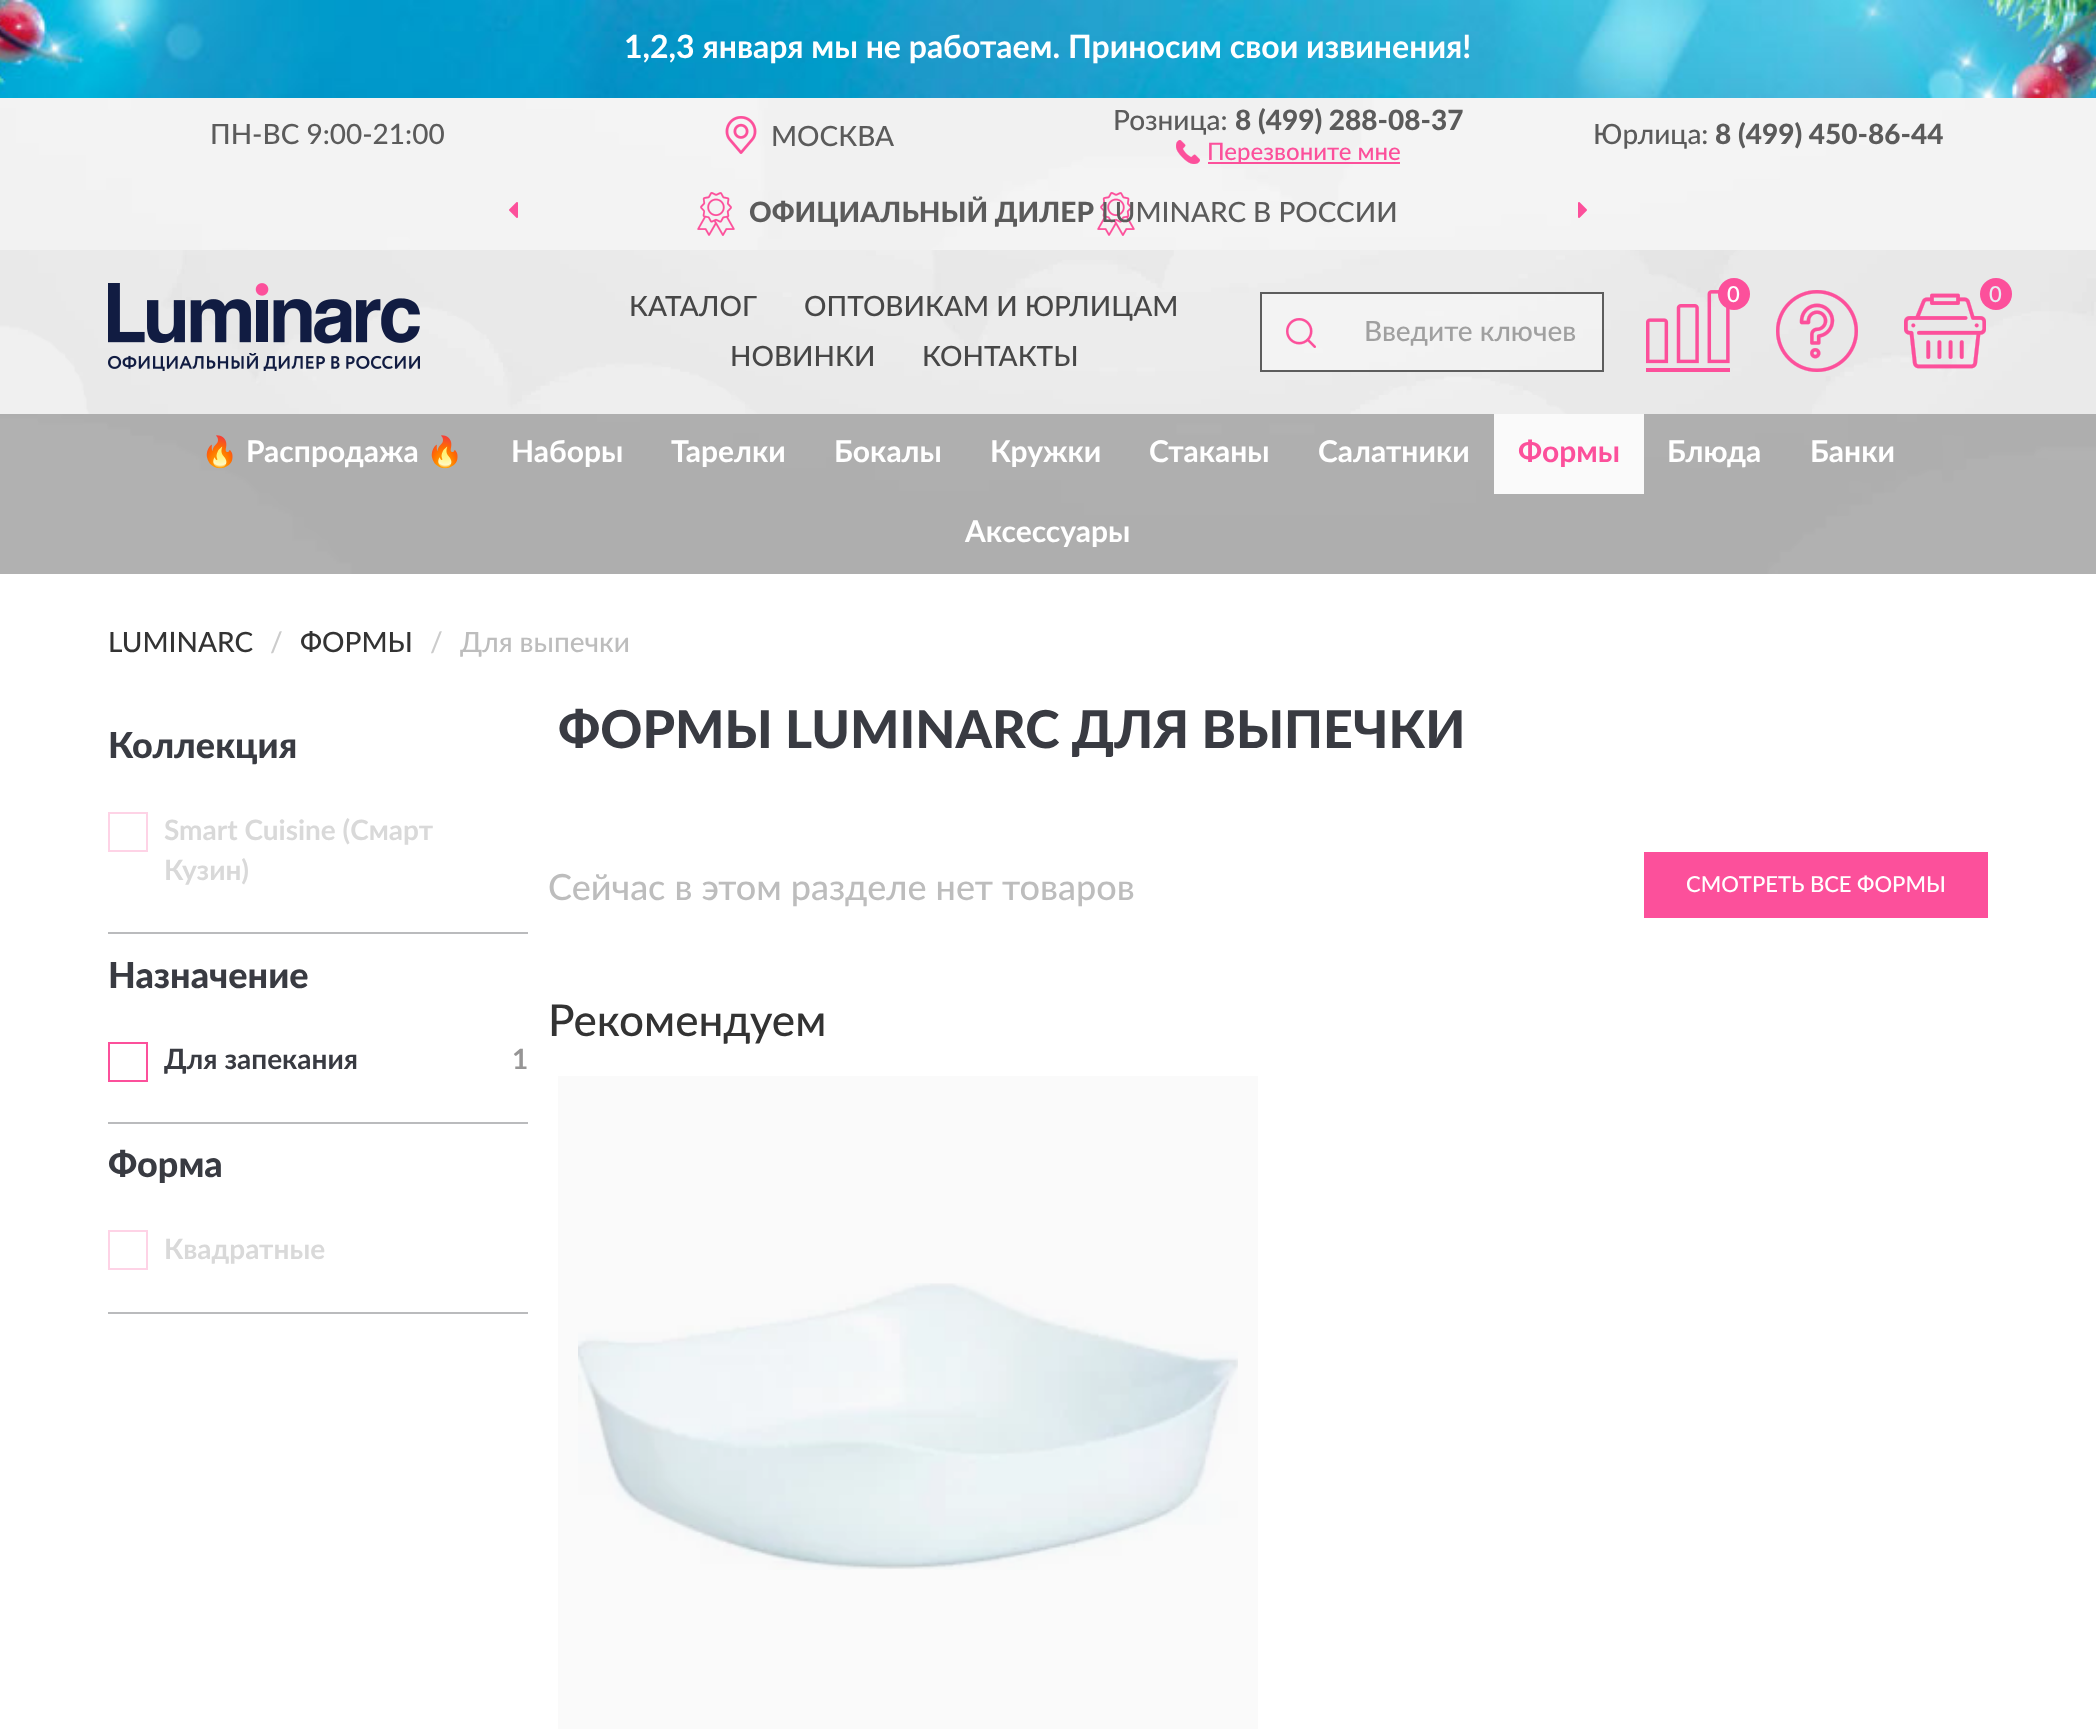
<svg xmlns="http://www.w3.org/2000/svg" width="2096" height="1729">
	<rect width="100%" height="100%" fill="#FFFFFF" />
	<image x="0" y="0" width="2096" height="98" href="assets/img1.png" />
	<text x="624" y="58" font-family="Lato" font-size="32" font-weight="700" fill="#FFFFFF">1,2,3 января мы не работаем. Приносим свои извинения!</text>
	<image x="0" y="98" width="2096" height="476" href="assets/img2.png" />
	<rect x="0" y="98" width="2096" height="152" fill="#FFFFFF" fill-opacity="0.39" />
	<text x="210" y="144" font-family="Lato" font-size="28" font-weight="500" fill="#5B5B5B">ПН-ВС 9:00-21:00</text>
	<image x="725" y="116" width="32" height="38" href="assets/img3.png" />
	<g font-family="Lato" font-size="28" font-weight="500" fill="#5B5B5B">
		<text x="771" y="146">МОСКВА</text>
		<text x="1113" y="130">Розница:</text>
	</g>
	<text x="1235" y="130" font-family="Lato" font-size="28" font-weight="900" fill="#5B5B5B">8 (499) 288-08-37</text>
	<image x="1176" y="140" width="24" height="24" href="assets/img4.png" />
	<rect x="1208" y="162" width="192" height="2" fill="#FC509B" />
	<text x="1207" y="160" font-family="Lato" font-size="24" font-weight="500" fill="#FC509B">Перезвоните мне</text>
	<text x="1593" y="144" font-family="Lato" font-size="28" font-weight="500" fill="#5B5B5B">Юрлица:</text>
	<text x="1715" y="144" font-family="Lato" font-size="28" font-weight="900" fill="#5B5B5B">8 (499) 450-86-44</text>
	<image x="697" y="192" width="438" height="44" href="assets/img5.png" />
	<text x="749" y="222" font-family="Lato" font-size="28" font-weight="900" fill="#5B5B5B">ОФИЦИАЛЬНЫЙ ДИЛЕР</text>
	<text x="1101" y="222" font-family="Lato" font-size="28" font-weight="500" fill="#5B5B5B">LUMINARC В РОССИИ</text>
	<image x="509" y="202" width="9" height="16" href="assets/img6.png" />
	<image x="1578" y="202" width="9" height="16" href="assets/img7.png" />
	<image x="0" y="250" width="2096" height="164" href="assets/img8.png" />
	<image x="108" y="283" width="312" height="88" href="assets/img9.png" />
	<g font-family="Lato" font-size="28" font-weight="500" fill="#474747">
		<text x="629" y="316">КАТАЛОГ</text>
		<text x="804" y="316">ОПТОВИКАМ И ЮРЛИЦАМ</text>
		<text x="730" y="366">НОВИНКИ</text>
		<text x="922" y="366">КОНТАКТЫ</text>
	</g>
	<rect x="1262" y="294" width="78" height="76" fill="#FFFFFF" fill-opacity="0.39" />
	<image x="1286" y="318" width="30" height="30" href="assets/img10.png" />
	<rect x="1260" y="292" width="344" height="2" fill="#5D5D5D" />
	<rect x="1260" y="370" width="80" height="2" fill="#5D5D5D" />
	<rect x="1260" y="292" width="2" height="80" fill="#5D5D5D" />
	<rect x="1340" y="294" width="262" height="76" fill="#FFFFFF" fill-opacity="0.39" />
	<rect x="1602" y="292" width="2" height="80" fill="#5D5D5D" />
	<rect x="1340" y="370" width="264" height="2" fill="#5D5D5D" />
	<text x="1364" y="341" font-family="Lato" font-size="28" font-weight="500" fill="#A0A0A0">Введите ключев</text>
	<image x="1646" y="290" width="84" height="82" href="assets/img11.png" />
	<circle cx="1734" cy="294" r="16" fill="#FC509B" />
	<text x="1727" y="302" font-family="Lato" font-size="22" font-weight="500" fill="#FFFFFF">0</text>
	<image x="1776" y="290" width="82" height="82" href="assets/img12.png" />
	<image x="1904" y="293" width="82" height="76" href="assets/img13.png" />
	<circle cx="1996" cy="294" r="16" fill="#FC509B" />
	<text x="1989" y="302" font-family="Lato" font-size="22" font-weight="500" fill="#E7ECF2">0</text>
	<rect x="0" y="414" width="2096" height="160" fill="#555555" fill-opacity="0.4" />
	<text x="201" y="462" font-family="Noto Color Emoji" font-size="30" fill="#FFFFFF">🔥</text>
	<text x="246" y="462" font-family="Lato" font-size="30" font-weight="700" fill="#FFFFFF">Распродажа</text>
	<text x="426" y="462" font-family="Noto Color Emoji" font-size="30" fill="#FFFFFF">🔥</text>
	<g font-family="Lato" font-size="30" font-weight="700" fill="#FFFFFF">
		<text x="511" y="462">Наборы</text>
		<text x="671" y="462">Тарелки</text>
		<text x="834" y="462">Бокалы</text>
		<text x="990" y="462">Кружки</text>
		<text x="1149" y="462">Стаканы</text>
		<text x="1318" y="462">Салатники</text>
	</g>
	<rect x="1494" y="414" width="150" height="80" fill="#FAFAFA" />
	<text x="1518" y="462" font-family="Lato" font-size="30" font-weight="700" fill="#FC509B">Формы</text>
	<g font-family="Lato" font-size="30" font-weight="700" fill="#FFFFFF">
		<text x="1667" y="462">Блюда</text>
		<text x="1810" y="462">Банки</text>
		<text x="965" y="542">Аксессуары</text>
	</g>
	<text x="108" y="652" font-family="Lato" font-size="28" font-weight="500" fill="#333333">LUMINARC</text>
	<text x="270" y="652" font-family="Lato" font-size="28" font-weight="500" fill="#CCCCCC">/</text>
	<text x="300" y="652" font-family="Lato" font-size="28" font-weight="500" fill="#333333">ФОРМЫ</text>
	<text x="430" y="652" font-family="Lato" font-size="28" font-weight="500" fill="#CCCCCC">/</text>
	<text x="460" y="652" font-family="Lato" font-size="28" font-weight="500" fill="#BDBDBD">Для выпечки</text>
	<rect x="108" y="1312" width="420" height="2" fill="#BABBBD" />
	<text x="108" y="758" font-family="Lato" font-size="36" font-weight="900" fill="#393B42">Коллекция</text>
	<rect x="109" y="813" width="38" height="38" fill="none" stroke="#FED3E6" stroke-width="2" />
	<g font-family="Lato" font-size="28" font-weight="700" fill="#D9D9D9">
		<text x="164" y="840">Smart Cuisine (Смарт</text>
		<text x="164" y="880">Кузин)</text>
	</g>
	<rect x="108" y="932" width="420" height="2" fill="#BABBBD" />
	<text x="108" y="988" font-family="Lato" font-size="36" font-weight="900" fill="#393B42">Назначение</text>
	<rect x="109" y="1043" width="38" height="38" fill="none" stroke="#FC509B" stroke-width="2" />
	<text x="164" y="1069" font-family="Lato" font-size="28" font-weight="700" fill="#393B42">Для запекания</text>
	<text x="512" y="1069" font-family="Lato" font-size="28" font-weight="700" fill="#969595">1</text>
	<rect x="108" y="1122" width="420" height="2" fill="#BABBBD" />
	<text x="108" y="1177" font-family="Lato" font-size="36" font-weight="900" fill="#393B42">Форма</text>
	<rect x="109" y="1231" width="38" height="38" fill="none" stroke="#FED3E6" stroke-width="2" />
	<text x="164" y="1259" font-family="Lato" font-size="28" font-weight="700" fill="#D9D9D9">Квадратные</text>
	<text x="558" y="748" font-family="Lato" font-size="52" font-weight="900" fill="#393B42">ФОРМЫ LUMINARC ДЛЯ ВЫПЕЧКИ</text>
	<text x="548" y="900" font-family="Lato" font-size="36" font-weight="500" fill="#BDBDBD">Сейчас в этом разделе нет товаров</text>
	<rect x="1644" y="852" width="344" height="66" fill="#FC509B" />
	<text x="1686" y="892" font-family="Lato" font-size="22" font-weight="500" fill="#FFFFFF">СМОТРЕТЬ ВСЕ ФОРМЫ</text>
	<text x="548" y="1036" font-family="Lato" font-size="44" font-weight="500" fill="#333333">Рекомендуем</text>
	<rect x="558" y="1076" width="700" height="653" fill="#FAFAFA" />
	<image x="578" y="1283" width="660" height="287" href="assets/img14.png" />
</svg>
